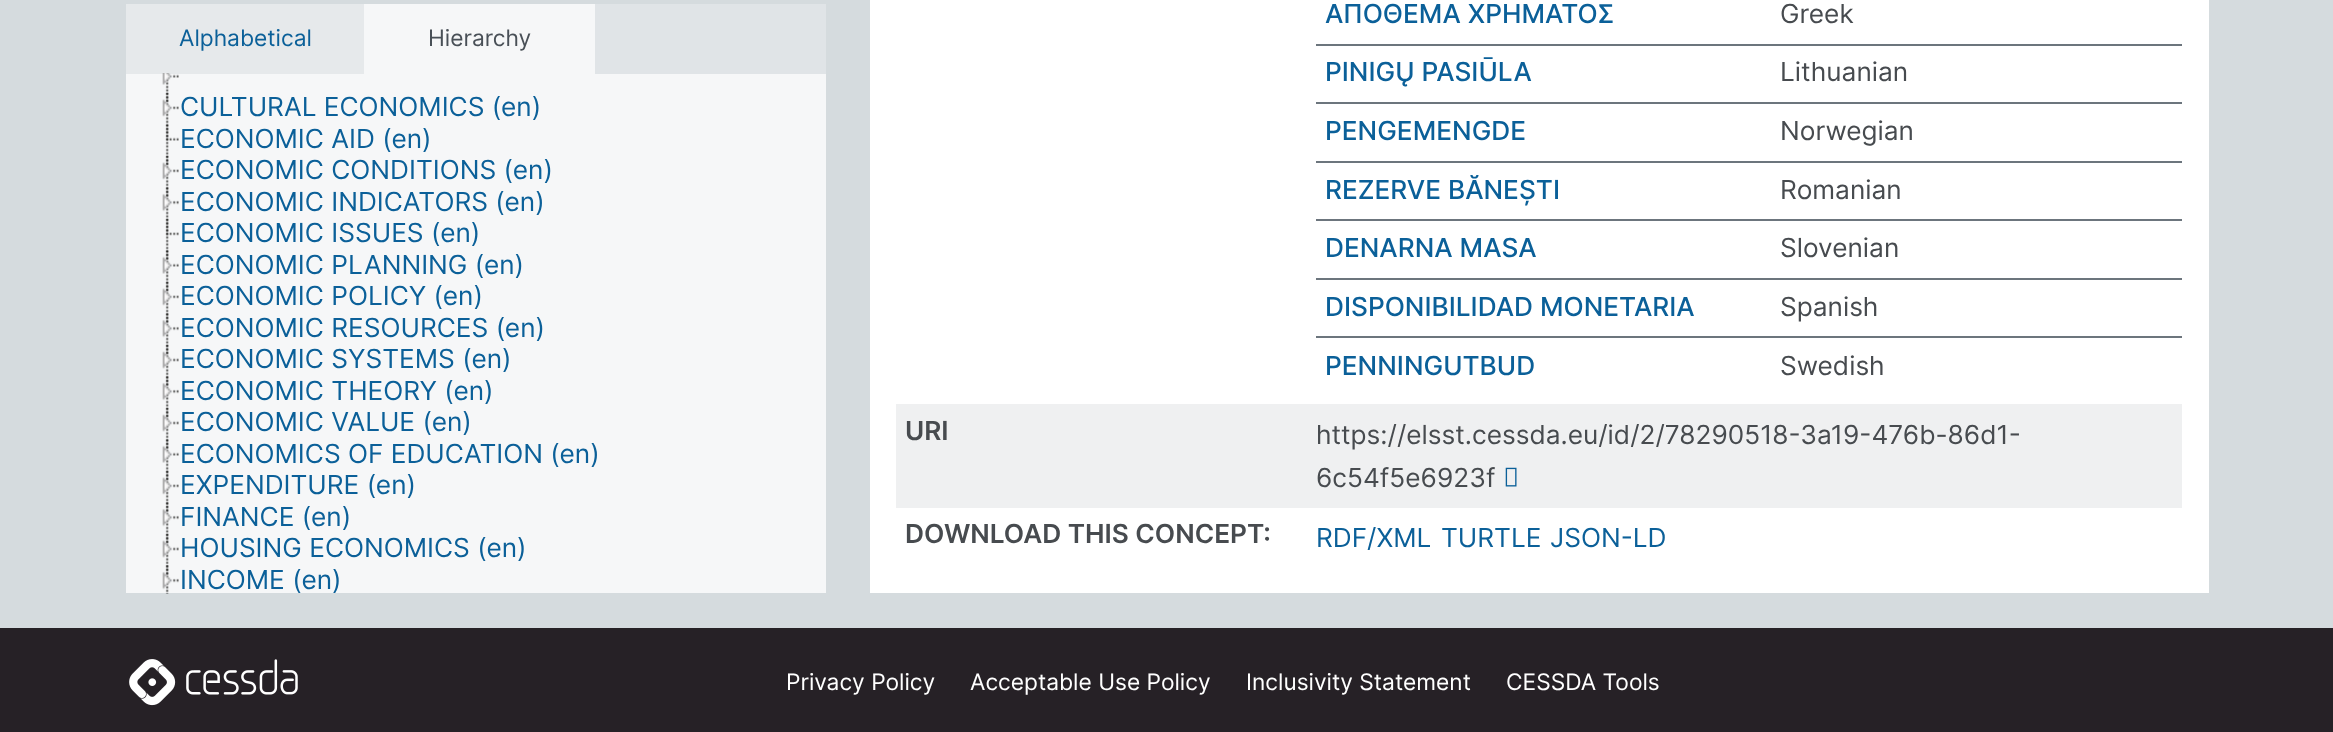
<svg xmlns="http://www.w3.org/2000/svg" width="2333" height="732">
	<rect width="100%" height="100%" fill="#D5DBDE" />
	<rect x="595" y="4" width="231" height="70" fill="#E0E4E7" />
	<rect x="126" y="4" width="238" height="70" fill="#E6E9EB" />
	<text x="179" y="46" font-family="Inter" font-size="22.75" fill="#0B6099">Alphabetical</text>
	<rect x="364" y="4" width="231" height="70" fill="#F6F7F8" />
	<text x="428" y="46" font-family="Inter" font-size="22.75" fill="#495057">Hierarchy</text>
	<rect x="126" y="74" width="700" height="519" fill="#F6F7F8" />
	<image x="165" y="73" width="4" height="19" href="assets/img1.png" />
	<image x="162" y="73" width="17" height="12" href="assets/img2.png" />
	<image x="165" y="92" width="4" height="32" href="assets/img3.png" />
	<image x="162" y="92" width="17" height="25" href="assets/img4.png" />
	<text x="180" y="116" font-family="Inter" font-size="26.25" fill="#0B6099">CULTURAL ECONOMICS (en)</text>
	<image x="165" y="123" width="4" height="32" href="assets/img5.png" />
	<image x="165" y="123" width="14" height="18" href="assets/img6.png" />
	<text x="180" y="148" font-family="Inter" font-size="26.25" fill="#0B6099">ECONOMIC AID (en)</text>
	<image x="165" y="155" width="4" height="32" href="assets/img3.png" />
	<image x="162" y="155" width="17" height="25" href="assets/img4.png" />
	<text x="180" y="179" font-family="Inter" font-size="26.25" fill="#0B6099">ECONOMIC CONDITIONS (en)</text>
	<image x="165" y="186" width="4" height="32" href="assets/img5.png" />
	<image x="162" y="187" width="17" height="25" href="assets/img7.png" />
	<text x="180" y="211" font-family="Inter" font-size="26.25" fill="#0B6099">ECONOMIC INDICATORS (en)</text>
	<image x="165" y="218" width="4" height="32" href="assets/img8.png" />
	<image x="165" y="218" width="14" height="18" href="assets/img9.png" />
	<text x="180" y="242" font-family="Inter" font-size="26.25" fill="#0B6099">ECONOMIC ISSUES (en)</text>
	<image x="165" y="250" width="4" height="32" href="assets/img10.png" />
	<image x="162" y="249" width="17" height="25" href="assets/img11.png" />
	<text x="180" y="274" font-family="Inter" font-size="26.25" fill="#0B6099">ECONOMIC PLANNING (en)</text>
	<image x="165" y="281" width="4" height="32" href="assets/img12.png" />
	<image x="162" y="281" width="17" height="25" href="assets/img13.png" />
	<text x="180" y="305" font-family="Inter" font-size="26.25" fill="#0B6099">ECONOMIC POLICY (en)</text>
	<image x="165" y="312" width="4" height="32" href="assets/img14.png" />
	<image x="162" y="313" width="17" height="25" href="assets/img7.png" />
	<text x="180" y="337" font-family="Inter" font-size="26.25" fill="#0B6099">ECONOMIC RESOURCES (en)</text>
	<image x="165" y="344" width="4" height="32" href="assets/img3.png" />
	<image x="162" y="344" width="17" height="25" href="assets/img15.png" />
	<text x="180" y="368" font-family="Inter" font-size="26.25" fill="#0B6099">ECONOMIC SYSTEMS (en)</text>
	<image x="165" y="375" width="4" height="32" href="assets/img5.png" />
	<image x="162" y="376" width="17" height="25" href="assets/img7.png" />
	<text x="180" y="400" font-family="Inter" font-size="26.25" fill="#0B6099">ECONOMIC THEORY (en)</text>
	<image x="165" y="407" width="4" height="32" href="assets/img16.png" />
	<image x="162" y="407" width="17" height="25" href="assets/img17.png" />
	<text x="180" y="431" font-family="Inter" font-size="26.25" fill="#0B6099">ECONOMIC VALUE (en)</text>
	<image x="165" y="439" width="4" height="32" href="assets/img18.png" />
	<image x="162" y="438" width="17" height="25" href="assets/img19.png" />
	<text x="180" y="463" font-family="Inter" font-size="26.25" fill="#0B6099">ECONOMICS OF EDUCATION (en)</text>
	<image x="165" y="470" width="4" height="32" href="assets/img12.png" />
	<image x="162" y="470" width="17" height="25" href="assets/img20.png" />
	<text x="180" y="494" font-family="Inter" font-size="26.25" fill="#0B6099">EXPENDITURE (en)</text>
	<image x="165" y="501" width="4" height="32" href="assets/img21.png" />
	<image x="162" y="502" width="17" height="25" href="assets/img22.png" />
	<text x="180" y="526" font-family="Inter" font-size="26.25" fill="#0B6099">FINANCE (en)</text>
	<image x="165" y="533" width="4" height="32" href="assets/img23.png" />
	<image x="162" y="533" width="17" height="25" href="assets/img24.png" />
	<text x="180" y="557" font-family="Inter" font-size="26.25" fill="#0B6099">HOUSING ECONOMICS (en)</text>
	<image x="165" y="565" width="4" height="29" href="assets/img25.png" />
	<image x="162" y="565" width="17" height="25" href="assets/img26.png" />
	<text x="180" y="589" font-family="Inter" font-size="26.25" fill="#0B6099">INCOME (en)</text>
	<rect x="870" y="0" width="1339" height="593" fill="#FFFFFF" />
	<text x="1325" y="23" font-family="Inter" font-size="26.25" font-weight="500" fill="#0B6099">ΑΠΟΘΕΜΑ ΧΡΗΜΑΤΟΣ</text>
	<text x="1780" y="23" font-family="Inter" font-size="26.25" fill="#474B4F">Greek</text>
	<rect x="1316" y="44" width="866" height="2" fill="#6C757D" />
	<text x="1325" y="81" font-family="Inter" font-size="26.25" font-weight="500" fill="#0B6099">PINIGŲ PASIŪLA</text>
	<text x="1780" y="81" font-family="Inter" font-size="26.25" fill="#474B4F">Lithuanian</text>
	<rect x="1316" y="102" width="866" height="2" fill="#6C757D" />
	<text x="1325" y="140" font-family="Inter" font-size="26.25" font-weight="500" fill="#0B6099">PENGEMENGDE</text>
	<text x="1780" y="140" font-family="Inter" font-size="26.25" fill="#474B4F">Norwegian</text>
	<rect x="1316" y="161" width="866" height="2" fill="#6C757D" />
	<text x="1325" y="199" font-family="Inter" font-size="26.25" font-weight="500" fill="#0B6099">REZERVE BĂNEȘTI</text>
	<text x="1780" y="199" font-family="Inter" font-size="26.25" fill="#474B4F">Romanian</text>
	<rect x="1316" y="219" width="866" height="2" fill="#6C757D" />
	<text x="1325" y="257" font-family="Inter" font-size="26.25" font-weight="500" fill="#0B6099">DENARNA MASA</text>
	<text x="1780" y="257" font-family="Inter" font-size="26.25" fill="#474B4F">Slovenian</text>
	<rect x="1316" y="278" width="866" height="2" fill="#6C757D" />
	<text x="1325" y="316" font-family="Inter" font-size="26.25" font-weight="500" fill="#0B6099">DISPONIBILIDAD MONETARIA</text>
	<text x="1780" y="316" font-family="Inter" font-size="26.25" fill="#474B4F">Spanish</text>
	<rect x="1316" y="336" width="866" height="2" fill="#6C757D" />
	<text x="1325" y="375" font-family="Inter" font-size="26.25" font-weight="500" fill="#0B6099">PENNINGUTBUD</text>
	<text x="1780" y="375" font-family="Inter" font-size="26.25" fill="#474B4F">Swedish</text>
	<rect x="896" y="404" width="1286" height="104" fill="#EFF0F1" />
	<text x="905" y="440" font-family="Inter" font-size="26.25" font-weight="600" fill="#474B4F">URI</text>
	<g font-family="Inter" font-size="26.25" fill="#474B4F">
		<text x="1316" y="444">https://elsst.cessda.eu/id/2/78290518-3a19-476b-86d1-</text>
		<text x="1316" y="487">6c54f5e6923f</text>
	</g>
	<image x="1505" y="467" width="12" height="20" href="assets/img27.png" />
	<text x="905" y="543" font-family="Inter" font-size="26.25" font-weight="600" fill="#474B4F">DOWNLOAD THIS CONCEPT:</text>
	<g font-family="Inter" font-size="26.25" fill="#0B6099">
		<text x="1316" y="547">RDF/XML</text>
		<text x="1441" y="547">TURTLE</text>
		<text x="1550" y="547">JSON-LD</text>
	</g>
	<rect x="0" y="628" width="2333" height="104" fill="#262126" />
	<image x="129" y="659" width="169" height="47" href="assets/img28.png" />
	<g font-family="Inter" font-size="22.75" fill="#FFFFFF">
		<text x="786" y="690">Privacy Policy</text>
		<text x="970" y="690">Acceptable Use Policy</text>
		<text x="1246" y="690">Inclusivity Statement</text>
		<text x="1506" y="690">CESSDA Tools</text>
	</g>
</svg>
